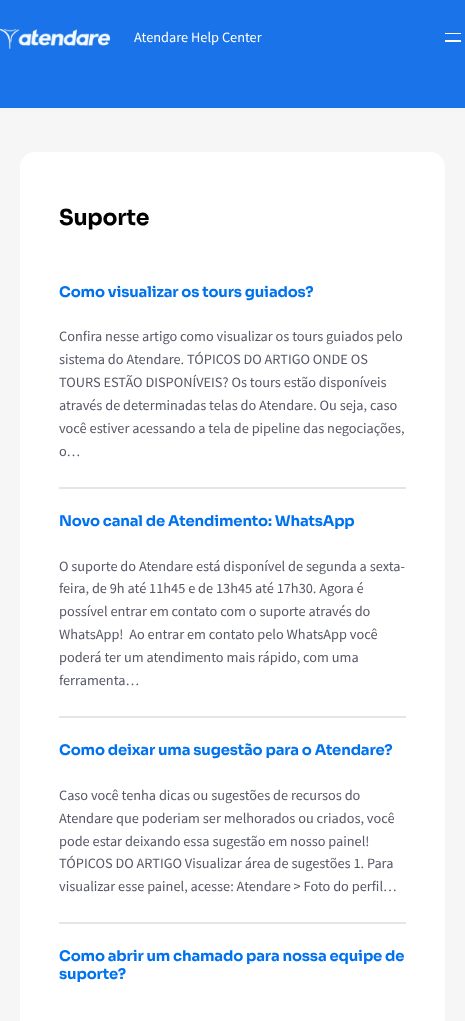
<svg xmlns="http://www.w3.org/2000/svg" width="465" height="1021">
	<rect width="100%" height="100%" fill="#F6F6F6" />
	<rect x="0" y="0" width="465" height="108" fill="#1A73E8" />
	<image x="0" y="29" width="110" height="20" href="assets/img1.png" />
	<text x="134" y="42" font-family="Source Sans Pro" font-size="14.3" fill="#FFFFFF">Atendare Help Center</text>
	<rect x="445" y="33" width="16" height="1" fill="#FFFFFF" />
	<rect x="445" y="40" width="16" height="2" fill="#FFFFFF" />
	<rect x="20" y="152" width="425" height="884" rx="15" fill="#FFFFFF" />
	<text x="59" y="225" font-family="Sora" font-size="22" font-weight="700" letter-spacing="-0.25" fill="#000000">Suporte</text>
	<text x="59" y="297" font-family="Sora" font-size="14.75" font-weight="700" letter-spacing="-0.15" fill="#0072EF">Como visualizar os tours guiados?</text>
	<g font-family="Source Sans Pro" font-size="14.3" fill="#565867">
		<text x="59" y="341">Confira nesse artigo como visualizar os tours guiados pelo</text>
		<text x="59" y="364">sistema do Atendare. TÓPICOS DO ARTIGO ONDE OS</text>
		<text x="59" y="387">TOURS ESTÃO DISPONÍVEIS? Os tours estão disponíveis</text>
		<text x="59" y="410">através de determinadas telas do Atendare. Ou seja, caso</text>
		<text x="59" y="433">você estiver acessando a tela de pipeline das negociações,</text>
		<text x="59" y="456">o…</text>
	</g>
	<rect x="59" y="487" width="347" height="2" fill="#E5E5E5" />
	<text x="59" y="526" font-family="Sora" font-size="14.75" font-weight="700" letter-spacing="-0.15" fill="#0072EF">Novo canal de Atendimento: WhatsApp</text>
	<g font-family="Source Sans Pro" font-size="14.3" fill="#565867">
		<text x="59" y="571">O suporte do Atendare está disponível de segunda a sexta-</text>
		<text x="59" y="593">feira, de 9h até 11h45 e de 13h45 até 17h30. Agora é</text>
		<text x="59" y="616">possível entrar em contato com o suporte através do</text>
		<text x="59" y="639" xml:space="preserve">WhatsApp!  Ao entrar em contato pelo WhatsApp você</text>
		<text x="59" y="662">poderá ter um atendimento mais rápido, com uma</text>
		<text x="59" y="685">ferramenta…</text>
	</g>
	<rect x="59" y="716" width="347" height="2" fill="#E5E5E5" />
	<text x="59" y="755" font-family="Sora" font-size="14.75" font-weight="700" letter-spacing="-0.15" fill="#0072EF">Como deixar uma sugestão para o Atendare?</text>
	<g font-family="Source Sans Pro" font-size="14.3" fill="#565867">
		<text x="59" y="800">Caso você tenha dicas ou sugestões de recursos do</text>
		<text x="59" y="823">Atendare que poderiam ser melhorados ou criados, você</text>
		<text x="59" y="846">pode estar deixando essa sugestão em nosso painel!</text>
		<text x="59" y="868">TÓPICOS DO ARTIGO Visualizar área de sugestões 1. Para</text>
		<text x="59" y="891">visualizar esse painel, acesse: Atendare &gt; Foto do perfil…</text>
	</g>
	<rect x="59" y="922" width="347" height="2" fill="#E5E5E5" />
	<g font-family="Sora" font-size="14.75" font-weight="700" letter-spacing="-0.15" fill="#0072EF">
		<text x="59" y="961">Como abrir um chamado para nossa equipe de</text>
		<text x="59" y="979">suporte?</text>
	</g>
</svg>
